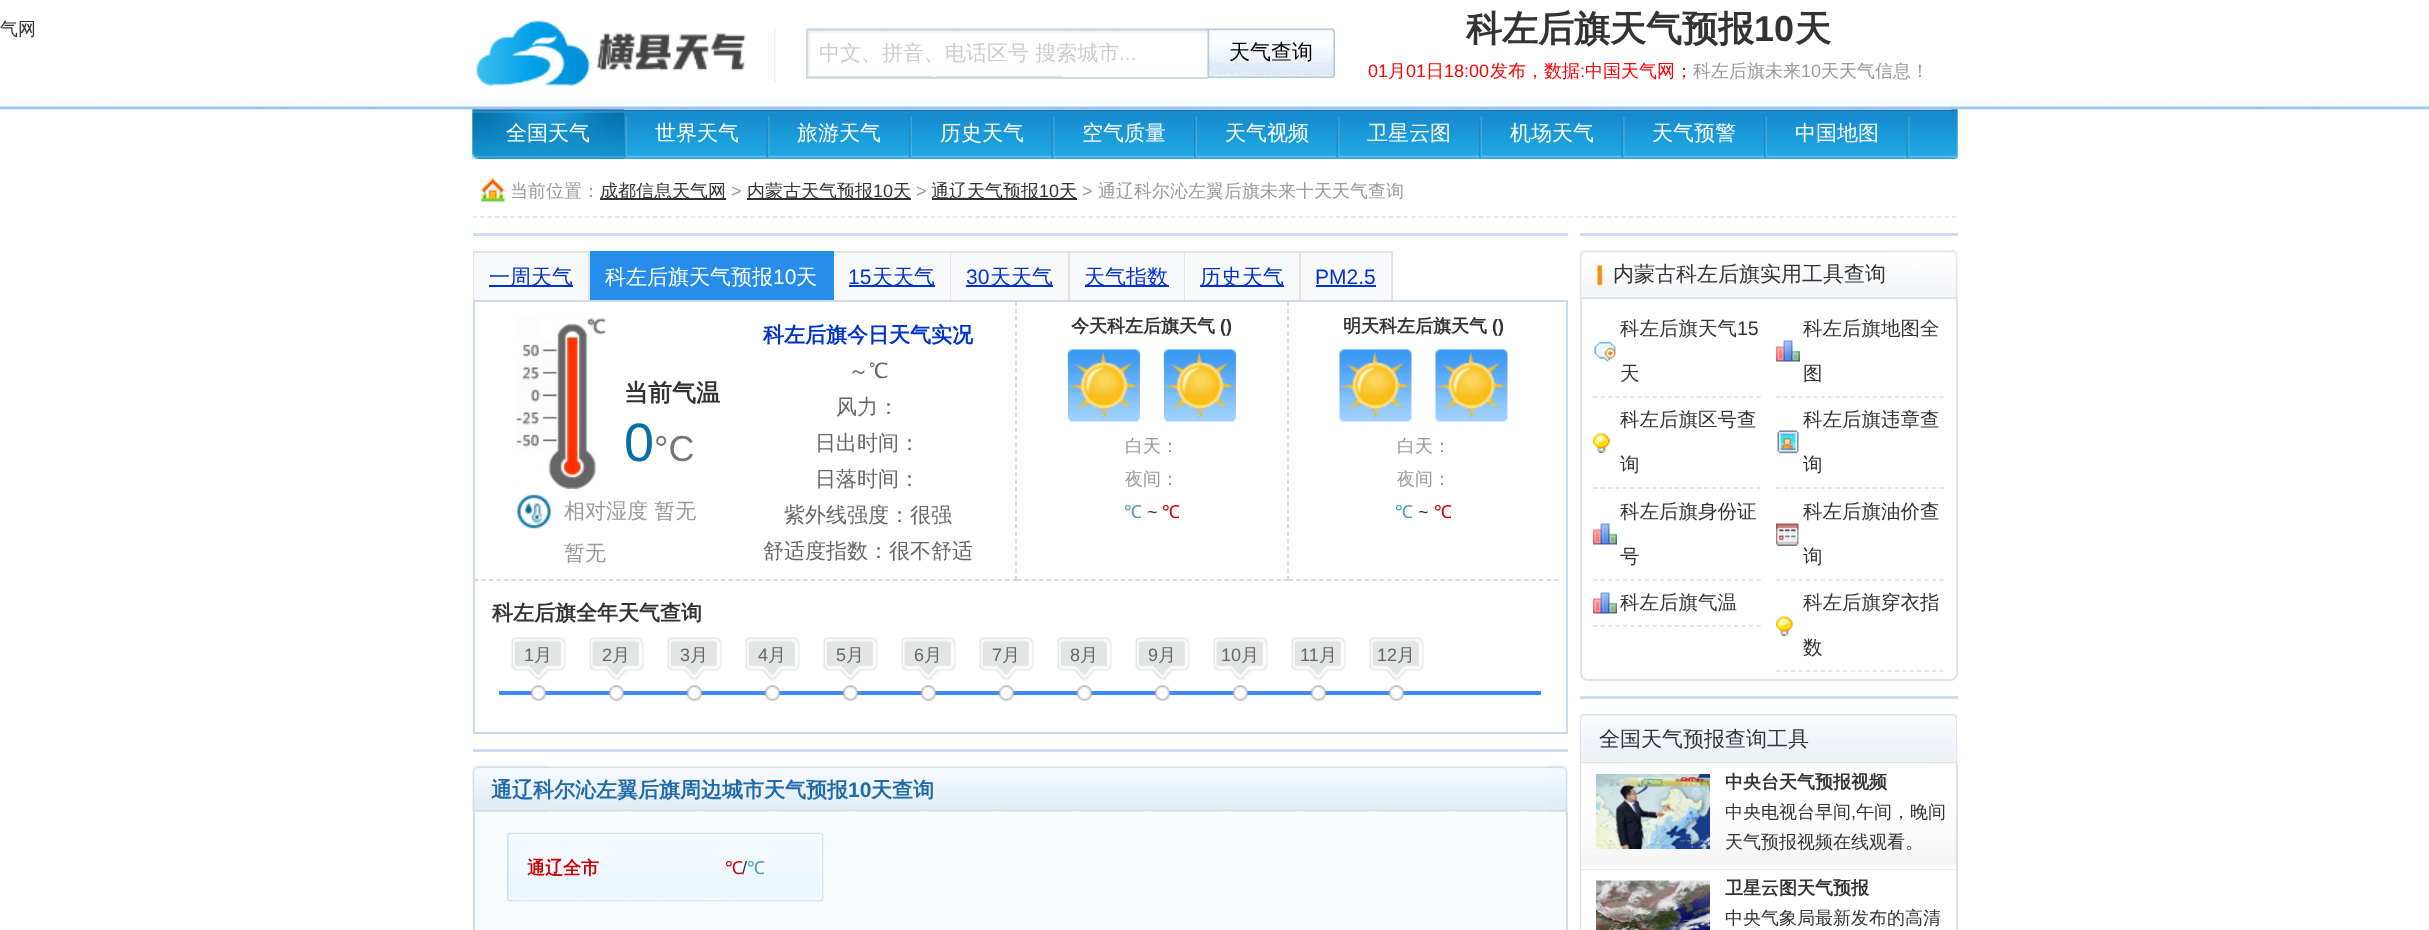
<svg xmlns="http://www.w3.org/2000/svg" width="2429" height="930">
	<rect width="100%" height="100%" fill="#FFFFFF" />
	<image x="0" y="96" width="2429" height="14" href="assets/img1.png" />
	<image x="774" y="27" width="2" height="56" href="assets/img2.png" />
	<image x="476" y="20" width="270" height="66" href="assets/img3.png" />
	<text x="0" y="35" font-family="WenQuanYi Zen Hei" font-size="18" font-weight="500" fill="#333333">气网</text>
	<text x="1466" y="41" font-family="WenQuanYi Zen Hei" font-size="36" font-weight="700" fill="#333333">科左后旗天气预报</text>
	<text x="1754" y="41" font-family="Liberation Sans" font-size="36" font-weight="700" fill="#333333">10</text>
	<text x="1795" y="41" font-family="WenQuanYi Zen Hei" font-size="36" font-weight="700" fill="#333333">天</text>
	<text x="1368" y="77" font-family="Liberation Sans" font-size="18" fill="#FF0000">01</text>
	<text x="1388" y="77" font-family="WenQuanYi Zen Hei" font-size="18" font-weight="500" fill="#FF0000">月</text>
	<text x="1406" y="77" font-family="Liberation Sans" font-size="18" fill="#FF0000">01</text>
	<text x="1426" y="77" font-family="WenQuanYi Zen Hei" font-size="18" font-weight="500" fill="#FF0000">日</text>
	<text x="1444" y="77" font-family="Liberation Sans" font-size="18" fill="#FF0000">18:00</text>
	<text x="1490" y="77" font-family="WenQuanYi Zen Hei" font-size="18" font-weight="500" fill="#FF0000">发布，数据</text>
	<text x="1580" y="77" font-family="Liberation Sans" font-size="18" fill="#FF0000">:</text>
	<text x="1585" y="77" font-family="WenQuanYi Zen Hei" font-size="18" font-weight="500" fill="#FF0000">中国天气网；</text>
	<text x="1693" y="77" font-family="WenQuanYi Zen Hei" font-size="18" font-weight="500" fill="#999999">科左后旗未来</text>
	<text x="1801" y="77" font-family="Liberation Sans" font-size="18" fill="#999999">10</text>
	<text x="1821" y="77" font-family="WenQuanYi Zen Hei" font-size="18" font-weight="500" fill="#999999">天天气信息！</text>
	<image x="807" y="28" width="401" height="49" href="assets/img4.png" />
	<rect x="806" y="29" width="402" height="2" fill="#D3D9E3" />
	<rect x="806" y="77" width="402" height="2" fill="#D3D9E3" />
	<rect x="806" y="29" width="2" height="49" fill="#D3D9E3" />
	<text x="819" y="60" font-family="WenQuanYi Zen Hei" font-size="21" font-weight="500" fill="#CCCCCC">中文、拼音、电话区号 搜索城市</text>
	<text x="1119" y="60" font-family="Liberation Sans" font-size="21" fill="#CCCCCC">...</text>
	<image x="1207" y="28" width="128" height="50" href="assets/img5.png" />
	<text x="1229" y="59" font-family="WenQuanYi Zen Hei" font-size="21" font-weight="500" fill="#000000">天气查询</text>
	<image x="472" y="109" width="1486" height="50" href="assets/img6.png" />
	<image x="472" y="109" width="152" height="50" href="assets/img7.png" />
	<text x="506" y="140" font-family="WenQuanYi Zen Hei" font-size="21" font-weight="500" fill="#FFFFFF">全国天气</text>
	<image x="624" y="116" width="3" height="42" href="assets/img8.png" />
	<text x="655" y="140" font-family="WenQuanYi Zen Hei" font-size="21" font-weight="500" fill="#FFFFFF">世界天气</text>
	<image x="766" y="116" width="4" height="42" href="assets/img9.png" />
	<text x="797" y="140" font-family="WenQuanYi Zen Hei" font-size="21" font-weight="500" fill="#FFFFFF">旅游天气</text>
	<image x="909" y="116" width="3" height="42" href="assets/img8.png" />
	<text x="940" y="140" font-family="WenQuanYi Zen Hei" font-size="21" font-weight="500" fill="#FFFFFF">历史天气</text>
	<image x="1051" y="116" width="4" height="42" href="assets/img9.png" />
	<text x="1082" y="140" font-family="WenQuanYi Zen Hei" font-size="21" font-weight="500" fill="#FFFFFF">空气质量</text>
	<image x="1194" y="116" width="3" height="42" href="assets/img10.png" />
	<text x="1225" y="140" font-family="WenQuanYi Zen Hei" font-size="21" font-weight="500" fill="#FFFFFF">天气视频</text>
	<image x="1336" y="116" width="4" height="42" href="assets/img9.png" />
	<text x="1367" y="140" font-family="WenQuanYi Zen Hei" font-size="21" font-weight="500" fill="#FFFFFF">卫星云图</text>
	<image x="1479" y="116" width="3" height="42" href="assets/img10.png" />
	<text x="1510" y="140" font-family="WenQuanYi Zen Hei" font-size="21" font-weight="500" fill="#FFFFFF">机场天气</text>
	<image x="1621" y="116" width="4" height="42" href="assets/img9.png" />
	<text x="1652" y="140" font-family="WenQuanYi Zen Hei" font-size="21" font-weight="500" fill="#FFFFFF">天气预警</text>
	<image x="1764" y="116" width="3" height="42" href="assets/img8.png" />
	<text x="1795" y="140" font-family="WenQuanYi Zen Hei" font-size="21" font-weight="500" fill="#FFFFFF">中国地图</text>
	<image x="1906" y="116" width="4" height="42" href="assets/img9.png" />
	<image x="1951" y="109" width="7" height="50" href="assets/img11.png" />
	<path d="M472.5 217H1957.5" fill="none" stroke="#DFDFDF" stroke-width="1.5" stroke-dasharray="4.5 3.01" />
	<image x="481" y="178" width="25" height="25" href="assets/img12.png" />
	<text x="510" y="197" font-family="WenQuanYi Zen Hei" font-size="18" font-weight="500" fill="#999999">当前位置：</text>
	<rect x="600" y="198" width="126" height="2" fill="#333333" />
	<text x="600" y="197" font-family="WenQuanYi Zen Hei" font-size="18" font-weight="500" fill="#333333">成都信息天气网</text>
	<text x="731" y="197" font-family="Liberation Sans" font-size="18" fill="#999999">&gt;</text>
	<rect x="747" y="198" width="164" height="2" fill="#333333" />
	<text x="747" y="197" font-family="WenQuanYi Zen Hei" font-size="18" font-weight="500" fill="#333333">内蒙古天气预报</text>
	<text x="873" y="197" font-family="Liberation Sans" font-size="18" fill="#333333">10</text>
	<text x="893" y="197" font-family="WenQuanYi Zen Hei" font-size="18" font-weight="500" fill="#333333">天</text>
	<text x="916" y="197" font-family="Liberation Sans" font-size="18" fill="#999999">&gt;</text>
	<rect x="932" y="198" width="145" height="2" fill="#333333" />
	<text x="931" y="197" font-family="WenQuanYi Zen Hei" font-size="18" font-weight="500" fill="#333333">通辽天气预报</text>
	<text x="1039" y="197" font-family="Liberation Sans" font-size="18" fill="#333333">10</text>
	<text x="1059" y="197" font-family="WenQuanYi Zen Hei" font-size="18" font-weight="500" fill="#333333">天</text>
	<text x="1082" y="197" font-family="Liberation Sans" font-size="18" fill="#999999">&gt;</text>
	<text x="1098" y="197" font-family="WenQuanYi Zen Hei" font-size="18" font-weight="500" fill="#999999">通辽科尔沁左翼后旗未来十天天气查询</text>
	<rect x="473" y="233" width="1095" height="3" fill="#CFDCEF" />
	<rect x="473" y="251" width="1" height="49" fill="#E3E3E3" />
	<rect x="474" y="253" width="114" height="47" fill="#F8F9FA" />
	<rect x="474" y="251" width="116" height="2" fill="#E3E3E3" />
	<rect x="588" y="251" width="2" height="49" fill="#E3E3E3" />
	<rect x="489" y="285" width="84" height="2" fill="#0033CC" />
	<text x="489" y="284" font-family="WenQuanYi Zen Hei" font-size="21" font-weight="500" fill="#0033CC">一周天气</text>
	<rect x="590" y="251" width="244" height="49" fill="#268DEA" />
	<text x="605" y="284" font-family="WenQuanYi Zen Hei" font-size="21" font-weight="500" fill="#FFFFFF">科左后旗天气预报</text>
	<text x="773" y="284" font-family="Liberation Sans" font-size="21" fill="#FFFFFF">10</text>
	<text x="796" y="284" font-family="WenQuanYi Zen Hei" font-size="21" font-weight="500" fill="#FFFFFF">天</text>
	<rect x="834" y="253" width="116" height="47" fill="#F8F9FA" />
	<rect x="834" y="251" width="558" height="2" fill="#E3E3E3" />
	<rect x="950" y="251" width="1" height="49" fill="#E3E3E3" />
	<text x="848" y="284" font-family="Liberation Sans" font-size="21" fill="#0033CC">15</text>
	<rect x="849" y="285" width="86" height="2" fill="#0033CC" />
	<text x="872" y="284" font-family="WenQuanYi Zen Hei" font-size="21" font-weight="500" fill="#0033CC">天天气</text>
	<rect x="951" y="253" width="117" height="47" fill="#F8F9FA" />
	<rect x="1068" y="251" width="2" height="49" fill="#E3E3E3" />
	<text x="966" y="284" font-family="Liberation Sans" font-size="21" fill="#0033CC">30</text>
	<rect x="966" y="285" width="87" height="2" fill="#0033CC" />
	<text x="990" y="284" font-family="WenQuanYi Zen Hei" font-size="21" font-weight="500" fill="#0033CC">天天气</text>
	<rect x="1070" y="253" width="114" height="47" fill="#F8F9FA" />
	<rect x="1184" y="251" width="1" height="49" fill="#E3E3E3" />
	<rect x="1085" y="285" width="84" height="2" fill="#0033CC" />
	<text x="1084" y="284" font-family="WenQuanYi Zen Hei" font-size="21" font-weight="500" fill="#0033CC">天气指数</text>
	<rect x="1185" y="253" width="114" height="47" fill="#F8F9FA" />
	<rect x="1299" y="251" width="2" height="49" fill="#E3E3E3" />
	<rect x="1200" y="285" width="84" height="2" fill="#0033CC" />
	<text x="1200" y="284" font-family="WenQuanYi Zen Hei" font-size="21" font-weight="500" fill="#0033CC">历史天气</text>
	<rect x="1301" y="253" width="90" height="47" fill="#F8F9FA" />
	<rect x="1391" y="251" width="2" height="49" fill="#E3E3E3" />
	<text x="1315" y="284" font-family="Liberation Sans" font-size="21" fill="#0033CC">PM2.5</text>
	<rect x="1316" y="285" width="60" height="2" fill="#0033CC" />
	<rect x="474" y="301" width="1093" height="432" fill="none" stroke="#CFDCEF" stroke-width="2" />
	<path d="M1016 301.5V580.5" fill="none" stroke="#CFCFCF" stroke-width="1.5" stroke-dasharray="4.5 2.92" />
	<path d="M474 580H1017" fill="none" stroke="#CFCFCF" stroke-width="1.5" stroke-dasharray="4.5 2.98" />
	<image x="516" y="317" width="90" height="172" href="assets/img13.png" />
	<text x="624" y="401" font-family="WenQuanYi Zen Hei" font-size="24" font-weight="700" fill="#333333">当前气温</text>
	<text x="624" y="461" font-family="Liberation Sans" font-size="54" fill="#076EA8">0</text>
	<text x="654" y="461" font-family="Liberation Sans" font-size="36" fill="#777777">°C</text>
	<image x="517" y="494" width="34" height="35" href="assets/img14.png" />
	<g font-family="WenQuanYi Zen Hei" font-size="21" font-weight="500" fill="#999999">
		<text x="564" y="518">相对湿度 暂无</text>
		<text x="564" y="560">暂无</text>
	</g>
	<text x="763" y="342" font-family="WenQuanYi Zen Hei" font-size="21" font-weight="700" fill="#0033CC">科左后旗今日天气实况</text>
	<g font-family="WenQuanYi Zen Hei" font-size="21" font-weight="500" fill="#666666">
		<text x="848" y="378">～℃</text>
		<text x="836" y="414">风力：</text>
		<text x="815" y="450">日出时间：</text>
		<text x="815" y="486">日落时间：</text>
		<text x="784" y="522">紫外线强度：很强</text>
		<text x="763" y="558">舒适度指数：很不舒适</text>
	</g>
	<path d="M1288 301.5V580.5" fill="none" stroke="#CFCFCF" stroke-width="1.5" stroke-dasharray="4.5 2.92" />
	<path d="M1017 580H1288.5" fill="none" stroke="#CFCFCF" stroke-width="1.5" stroke-dasharray="4.5 2.91" />
	<text x="1071" y="332" font-family="WenQuanYi Zen Hei" font-size="18" font-weight="700" fill="#333333">今天科左后旗天气</text>
	<text x="1220" y="332" font-family="Liberation Sans" font-size="18" font-weight="700" fill="#333333">()</text>
	<image x="1068" y="349" width="72" height="73" href="assets/img15.png" />
	<image x="1164" y="349" width="72" height="73" href="assets/img16.png" />
	<g font-family="WenQuanYi Zen Hei" font-size="18" font-weight="500" fill="#999999">
		<text x="1125" y="452">白天：</text>
		<text x="1125" y="485">夜间：</text>
	</g>
	<text x="1124" y="518" font-family="Noto Sans" font-size="18" fill="#4899BE">℃</text>
	<text x="1147" y="518" font-family="Liberation Sans" font-size="18" fill="#333333">~</text>
	<text x="1162" y="518" font-family="Noto Sans" font-size="18" fill="#CC0000">℃</text>
	<path d="M1288.5 580H1558.5" fill="none" stroke="#CFCFCF" stroke-width="1.5" stroke-dasharray="4.5 3.09" />
	<text x="1343" y="332" font-family="WenQuanYi Zen Hei" font-size="18" font-weight="700" fill="#333333">明天科左后旗天气</text>
	<text x="1492" y="332" font-family="Liberation Sans" font-size="18" font-weight="700" fill="#333333">()</text>
	<image x="1339" y="349" width="73" height="73" href="assets/img17.png" />
	<image x="1435" y="349" width="73" height="73" href="assets/img17.png" />
	<g font-family="WenQuanYi Zen Hei" font-size="18" font-weight="500" fill="#999999">
		<text x="1397" y="452">白天：</text>
		<text x="1397" y="485">夜间：</text>
	</g>
	<text x="1395" y="518" font-family="Noto Sans" font-size="18" fill="#4899BE">℃</text>
	<text x="1418" y="518" font-family="Liberation Sans" font-size="18" fill="#333333">~</text>
	<text x="1434" y="518" font-family="Noto Sans" font-size="18" fill="#CC0000">℃</text>
	<text x="492" y="620" font-family="WenQuanYi Zen Hei" font-size="21" font-weight="700" fill="#333333">科左后旗全年天气查询</text>
	<rect x="499" y="691" width="1042" height="4" fill="#3D8BFA" />
	<image x="511" y="637" width="55" height="43" href="assets/img18.png" />
	<text x="524" y="661" font-family="Liberation Sans" font-size="18" fill="#666666">1</text>
	<text x="534" y="661" font-family="WenQuanYi Zen Hei" font-size="18" font-weight="500" fill="#666666">月</text>
	<image x="530" y="685" width="17" height="16" href="assets/img19.png" />
	<image x="589" y="637" width="55" height="43" href="assets/img20.png" />
	<text x="602" y="661" font-family="Liberation Sans" font-size="18" fill="#666666">2</text>
	<text x="612" y="661" font-family="WenQuanYi Zen Hei" font-size="18" font-weight="500" fill="#666666">月</text>
	<image x="608" y="685" width="17" height="16" href="assets/img19.png" />
	<image x="667" y="637" width="55" height="43" href="assets/img20.png" />
	<text x="680" y="661" font-family="Liberation Sans" font-size="18" fill="#666666">3</text>
	<text x="690" y="661" font-family="WenQuanYi Zen Hei" font-size="18" font-weight="500" fill="#666666">月</text>
	<image x="686" y="685" width="17" height="16" href="assets/img19.png" />
	<image x="745" y="637" width="55" height="43" href="assets/img21.png" />
	<text x="758" y="661" font-family="Liberation Sans" font-size="18" fill="#666666">4</text>
	<text x="768" y="661" font-family="WenQuanYi Zen Hei" font-size="18" font-weight="500" fill="#666666">月</text>
	<image x="764" y="685" width="17" height="16" href="assets/img22.png" />
	<image x="823" y="637" width="55" height="43" href="assets/img18.png" />
	<text x="836" y="661" font-family="Liberation Sans" font-size="18" fill="#666666">5</text>
	<text x="846" y="661" font-family="WenQuanYi Zen Hei" font-size="18" font-weight="500" fill="#666666">月</text>
	<image x="842" y="685" width="17" height="16" href="assets/img22.png" />
	<image x="901" y="637" width="55" height="43" href="assets/img18.png" />
	<text x="914" y="661" font-family="Liberation Sans" font-size="18" fill="#666666">6</text>
	<text x="924" y="661" font-family="WenQuanYi Zen Hei" font-size="18" font-weight="500" fill="#666666">月</text>
	<image x="920" y="685" width="17" height="16" href="assets/img22.png" />
	<image x="979" y="637" width="55" height="43" href="assets/img18.png" />
	<text x="992" y="661" font-family="Liberation Sans" font-size="18" fill="#666666">7</text>
	<text x="1002" y="661" font-family="WenQuanYi Zen Hei" font-size="18" font-weight="500" fill="#666666">月</text>
	<image x="998" y="685" width="17" height="16" href="assets/img22.png" />
	<image x="1057" y="637" width="55" height="43" href="assets/img23.png" />
	<text x="1070" y="661" font-family="Liberation Sans" font-size="18" fill="#666666">8</text>
	<text x="1080" y="661" font-family="WenQuanYi Zen Hei" font-size="18" font-weight="500" fill="#666666">月</text>
	<image x="1076" y="685" width="17" height="16" href="assets/img22.png" />
	<image x="1135" y="637" width="55" height="43" href="assets/img20.png" />
	<text x="1148" y="661" font-family="Liberation Sans" font-size="18" fill="#666666">9</text>
	<text x="1158" y="661" font-family="WenQuanYi Zen Hei" font-size="18" font-weight="500" fill="#666666">月</text>
	<image x="1154" y="685" width="17" height="16" href="assets/img19.png" />
	<image x="1213" y="637" width="55" height="43" href="assets/img18.png" />
	<text x="1221" y="661" font-family="Liberation Sans" font-size="18" fill="#666666">10</text>
	<text x="1241" y="661" font-family="WenQuanYi Zen Hei" font-size="18" font-weight="500" fill="#666666">月</text>
	<image x="1232" y="685" width="17" height="16" href="assets/img22.png" />
	<image x="1291" y="637" width="55" height="43" href="assets/img23.png" />
	<text x="1300" y="661" font-family="Liberation Sans" font-size="18" fill="#666666">11</text>
	<text x="1319" y="661" font-family="WenQuanYi Zen Hei" font-size="18" font-weight="500" fill="#666666">月</text>
	<image x="1310" y="685" width="17" height="16" href="assets/img19.png" />
	<image x="1369" y="637" width="55" height="43" href="assets/img20.png" />
	<text x="1377" y="661" font-family="Liberation Sans" font-size="18" fill="#666666">12</text>
	<text x="1397" y="661" font-family="WenQuanYi Zen Hei" font-size="18" font-weight="500" fill="#666666">月</text>
	<image x="1388" y="685" width="17" height="16" href="assets/img19.png" />
	<rect x="473" y="749" width="1095" height="3" fill="#CFDCEF" />
	<image x="472" y="766" width="1096" height="46" href="assets/img24.png" />
	<image x="472" y="766" width="76" height="46" href="assets/img25.png" />
	<text x="491" y="797" font-family="WenQuanYi Zen Hei" font-size="21" font-weight="700" fill="#206AA8">通辽科尔沁左翼后旗周边城市天气预报</text>
	<text x="848" y="797" font-family="Liberation Sans" font-size="21" font-weight="700" fill="#206AA8">10</text>
	<text x="871" y="797" font-family="WenQuanYi Zen Hei" font-size="21" font-weight="700" fill="#206AA8">天查询</text>
	<image x="1548" y="766" width="20" height="46" href="assets/img26.png" />
	<rect x="475" y="812" width="1091" height="118" fill="#FAFDFF" />
	<rect x="1566" y="812" width="2" height="118" fill="#CFDAE4" />
	<rect x="473" y="812" width="2" height="118" fill="#CFDAE4" />
	<image x="507" y="832" width="317" height="70" href="assets/img27.png" />
	<text x="527" y="874" font-family="WenQuanYi Zen Hei" font-size="18" font-weight="700" fill="#CC0000">通辽全市</text>
	<text x="725" y="874" font-family="Noto Sans" font-size="18" fill="#CC0000">℃</text>
	<text x="742" y="874" font-family="Liberation Sans" font-size="18" fill="#333333">/</text>
	<text x="747" y="874" font-family="Noto Sans" font-size="18" fill="#4899BE">℃</text>
	<rect x="1580" y="233" width="378" height="3" fill="#CFDCEF" />
	<image x="1579" y="250" width="379" height="47" href="assets/img28.png" />
	<image x="1579" y="250" width="306" height="47" href="assets/img29.png" />
	<text x="1613" y="281" font-family="WenQuanYi Zen Hei" font-size="21" font-weight="500" fill="#333333">内蒙古科左后旗实用工具查询</text>
	<image x="1943" y="250" width="15" height="47" href="assets/img30.png" />
	<path d="M1581 298H1957V673C1957 677 1954 680 1950 680H1588C1584 680 1581 677 1581 673Z" fill="none" stroke="#DFE2E8" stroke-width="2" />
	<image x="1594" y="341" width="22" height="21" href="assets/img31.png" />
	<path d="M1593 397H1761" fill="none" stroke="#DFDFDF" stroke-width="1.5" stroke-dasharray="4.5 2.92" />
	<text x="1620" y="335" font-family="WenQuanYi Zen Hei" font-size="19.5" font-weight="500" fill="#333333">科左后旗天气</text>
	<text x="1737" y="335" font-family="Liberation Sans" font-size="19.5" fill="#333333">15</text>
	<text x="1620" y="380" font-family="WenQuanYi Zen Hei" font-size="19.5" font-weight="500" fill="#333333">天</text>
	<image x="1776" y="340" width="24" height="22" href="assets/img32.png" />
	<path d="M1776 397H1944" fill="none" stroke="#DFDFDF" stroke-width="1.5" stroke-dasharray="4.5 2.92" />
	<g font-family="WenQuanYi Zen Hei" font-size="19.5" font-weight="500" fill="#333333">
		<text x="1803" y="335">科左后旗地图全</text>
		<text x="1803" y="380">图</text>
	</g>
	<image x="1593" y="433" width="18" height="20" href="assets/img33.png" />
	<path d="M1593 488H1761" fill="none" stroke="#DFDFDF" stroke-width="1.5" stroke-dasharray="4.5 2.92" />
	<g font-family="WenQuanYi Zen Hei" font-size="19.5" font-weight="500" fill="#333333">
		<text x="1620" y="426">科左后旗区号查</text>
		<text x="1620" y="471">询</text>
	</g>
	<image x="1777" y="430" width="22" height="24" href="assets/img34.png" />
	<path d="M1776 488H1944" fill="none" stroke="#DFDFDF" stroke-width="1.5" stroke-dasharray="4.5 2.92" />
	<g font-family="WenQuanYi Zen Hei" font-size="19.5" font-weight="500" fill="#333333">
		<text x="1803" y="426">科左后旗违章查</text>
		<text x="1803" y="471">询</text>
	</g>
	<image x="1593" y="523" width="24" height="22" href="assets/img32.png" />
	<path d="M1593 580H1761" fill="none" stroke="#DFDFDF" stroke-width="1.5" stroke-dasharray="4.5 2.92" />
	<g font-family="WenQuanYi Zen Hei" font-size="19.5" font-weight="500" fill="#333333">
		<text x="1620" y="518">科左后旗身份证</text>
		<text x="1620" y="563">号</text>
	</g>
	<image x="1776" y="523" width="23" height="23" href="assets/img35.png" />
	<path d="M1776 580H1944" fill="none" stroke="#DFDFDF" stroke-width="1.5" stroke-dasharray="4.5 2.92" />
	<g font-family="WenQuanYi Zen Hei" font-size="19.5" font-weight="500" fill="#333333">
		<text x="1803" y="518">科左后旗油价查</text>
		<text x="1803" y="563">询</text>
	</g>
	<image x="1593" y="592" width="24" height="22" href="assets/img32.png" />
	<path d="M1593 626H1761" fill="none" stroke="#DFDFDF" stroke-width="1.5" stroke-dasharray="4.5 2.92" />
	<text x="1620" y="609" font-family="WenQuanYi Zen Hei" font-size="19.5" font-weight="500" fill="#333333">科左后旗气温</text>
	<image x="1776" y="616" width="18" height="20" href="assets/img33.png" />
	<path d="M1776 671H1944" fill="none" stroke="#DFDFDF" stroke-width="1.5" stroke-dasharray="4.5 2.92" />
	<g font-family="WenQuanYi Zen Hei" font-size="19.5" font-weight="500" fill="#333333">
		<text x="1803" y="609">科左后旗穿衣指</text>
		<text x="1803" y="654">数</text>
	</g>
	<rect x="1580" y="696" width="378" height="3" fill="#CFDCEF" />
	<image x="1579" y="714" width="379" height="50" href="assets/img36.png" />
	<image x="1580" y="714" width="41" height="50" href="assets/img37.png" />
	<text x="1599" y="746" font-family="WenQuanYi Zen Hei" font-size="21" font-weight="500" fill="#333333">全国天气预报查询工具</text>
	<image x="1931" y="714" width="26" height="50" href="assets/img38.png" />
	<rect x="1956" y="764" width="2" height="166" fill="#DBDFE8" />
	<rect x="1580" y="764" width="2" height="166" fill="#DBDFE8" />
	<image x="1581" y="763" width="375" height="106" href="assets/img39.png" />
	<rect x="1581" y="869" width="375" height="1" fill="#EBEBEB" />
	<image x="1596" y="774" width="114" height="75" href="assets/img40.png" />
	<text x="1725" y="788" font-family="WenQuanYi Zen Hei" font-size="18" font-weight="700" fill="#333333">中央台天气预报视频</text>
	<text x="1725" y="818" font-family="WenQuanYi Zen Hei" font-size="18" font-weight="500" fill="#333333">中央电视台早间</text>
	<text x="1851" y="818" font-family="Liberation Sans" font-size="18" fill="#333333">,</text>
	<g font-family="WenQuanYi Zen Hei" font-size="18" font-weight="500" fill="#333333">
		<text x="1856" y="818">午间，晚间</text>
		<text x="1725" y="848">天气预报视频在线观看。</text>
	</g>
	<rect x="1581" y="870" width="1" height="60" fill="#FFFFFF" />
	<image x="1596" y="880" width="114" height="50" href="assets/img41.png" />
	<text x="1725" y="894" font-family="WenQuanYi Zen Hei" font-size="18" font-weight="700" fill="#333333">卫星云图天气预报</text>
	<text x="1725" y="924" font-family="WenQuanYi Zen Hei" font-size="18" font-weight="500" fill="#333333">中央气象局最新发布的高清</text>
</svg>
